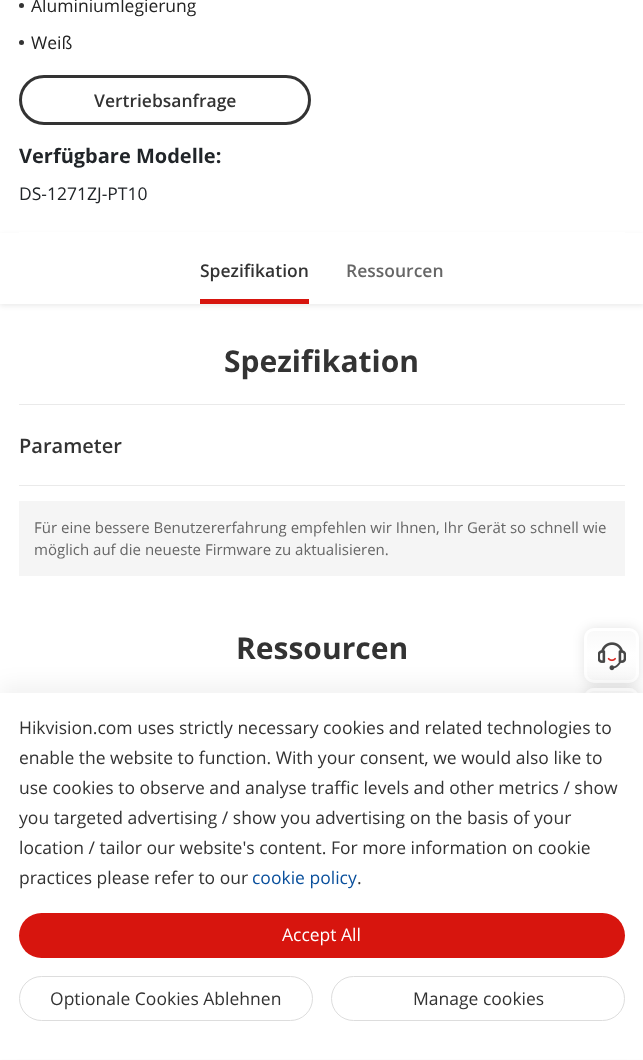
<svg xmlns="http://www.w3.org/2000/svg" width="643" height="1060">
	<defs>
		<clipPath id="clip1"><rect x="584" y="628" width="55" height="55" rx="10" /></clipPath>
		<linearGradient id="g1" gradientUnits="userSpaceOnUse" x1="611" y1="630" x2="611" y2="680"><stop offset="0" stop-color="#F9F9F9" /><stop offset="0.51" stop-color="#FFFFFF" /><stop offset="1" stop-color="#F9F9F9" /></linearGradient>
		<clipPath id="clip2"><path d="M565 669H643V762H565ZM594 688H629C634.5 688 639 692.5 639 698V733C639 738.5 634.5 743 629 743H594C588.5 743 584 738.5 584 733V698C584 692.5 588.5 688 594 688Z" clip-rule="evenodd" /></clipPath>
		<clipPath id="clip3"><rect x="584" y="688" width="55" height="55" rx="10" /></clipPath>
		<linearGradient id="g2" gradientUnits="userSpaceOnUse" x1="611" y1="640" x2="611" y2="690"><stop offset="0" stop-color="#F8F8F8" stop-opacity="0.9" /><stop offset="0.51" stop-color="#FFFFFF" stop-opacity="0.9" /><stop offset="1" stop-color="#F8F8F8" stop-opacity="0.9" /></linearGradient>
		<linearGradient id="g3" gradientUnits="userSpaceOnUse" x1="611" y1="690" x2="611" y2="740"><stop offset="0" stop-color="#F8F8F8" stop-opacity="0.9" /><stop offset="0.51" stop-color="#FFFFFF" stop-opacity="0.9" /><stop offset="1" stop-color="#F8F8F8" stop-opacity="0.9" /></linearGradient>
	</defs>
	<rect width="100%" height="100%" fill="#FFFFFF" />
	<rect x="0" y="235" width="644" height="71" fill="#000000" fill-opacity="0.08" filter="blur(2.5px)" />
	<rect x="19" y="232" width="606" height="1" fill="#FFFFFF" />
	<circle cx="21.5" cy="5.5" r="2.5" fill="#333333" />
	<text x="31" y="12" font-family="Open Sans" font-size="17.5" fill="#222222">Aluminiumlegierung</text>
	<circle cx="21.5" cy="42.5" r="2.5" fill="#333333" />
	<text x="31" y="49" font-family="Open Sans" font-size="17.5" fill="#222222">Weiß</text>
	<rect x="20.5" y="76.5" width="289" height="47" rx="23.5" fill="none" stroke="#333333" stroke-width="3" />
	<text x="94" y="107" font-family="Open Sans" font-size="17.5" font-weight="600" fill="#333333">Vertriebsanfrage</text>
	<text x="19" y="163" font-family="Open Sans" font-size="20" font-weight="700" fill="#212529">Verfügbare Modelle:</text>
	<text x="19" y="200" font-family="Open Sans" font-size="17.5" fill="#212529">DS-1271ZJ-PT10</text>
	<rect x="0" y="233" width="643" height="71" fill="#FFFFFF" />
	<rect x="200" y="299" width="109" height="5" fill="#D7150E" />
	<text x="200" y="277" font-family="Open Sans" font-size="17.5" font-weight="600" fill="#333333">Spezifikation</text>
	<text x="346" y="277" font-family="Open Sans" font-size="17.5" font-weight="600" fill="#666666">Ressourcen</text>
	<text x="224" y="372" font-family="Open Sans" font-size="30" font-weight="700" fill="#333333">Spezifikation</text>
	<rect x="19" y="404" width="606" height="1" fill="#EAEAEA" />
	<rect x="19" y="485" width="606" height="1" fill="#EAEAEA" />
	<text x="19" y="453" font-family="Open Sans" font-size="20" font-weight="600" fill="#333333">Parameter</text>
	<rect x="19" y="501" width="606" height="75" fill="#F5F5F5" />
	<g font-family="Open Sans" font-size="15" fill="#666666">
		<text x="34" y="533">Für eine bessere Benutzererfahrung empfehlen wir Ihnen, Ihr Gerät so schnell wie</text>
		<text x="34" y="555">möglich auf die neueste Firmware zu aktualisieren.</text>
	</g>
	<text x="236" y="659" font-family="Open Sans" font-size="30" font-weight="700" fill="#333333">Ressourcen</text>
	<rect x="584" y="628" width="55" height="55" rx="10" fill="#000000" fill-opacity="0.11" filter="blur(6px)" />
	<g clip-path="url(#clip1)">
		<rect x="584" y="630" width="55" height="50" fill="url(#g1)" />
	</g>
	<rect x="585.5" y="629.5" width="52" height="52" rx="8.5" fill="none" stroke="#FFFFFF" stroke-width="3" />
	<image x="598" y="642" width="28" height="29" href="assets/img1.png" />
	<g clip-path="url(#clip2)">
		<rect x="584" y="688" width="55" height="55" rx="10" fill="#000000" fill-opacity="0.11" filter="blur(6px)" />
	</g>
	<g clip-path="url(#clip3)">
		<rect x="584" y="688" width="55" height="2" fill="url(#g2)" />
		<rect x="585" y="690" width="53" height="3" fill="url(#g3)" />
	</g>
	<rect x="585.5" y="689.5" width="52" height="52" rx="8.5" fill="none" stroke="#FFFFFF" stroke-opacity="0.9" stroke-width="3" />
	<rect x="0" y="684" width="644" height="367" fill="#000000" fill-opacity="0.05" filter="blur(10px)" />
	<rect x="0" y="693" width="643" height="366" fill="#FFFFFF" />
	<g font-family="Open Sans" font-size="17.5" fill="#333333">
		<text x="19" y="734">Hikvision.com uses strictly necessary cookies and related technologies to</text>
		<text x="19" y="764">enable the website to function. With your consent, we would also like to</text>
		<text x="19" y="794">use cookies to observe and analyse traffic levels and other metrics / show</text>
		<text x="19" y="824">you targeted advertising / show you advertising on the basis of your</text>
		<text x="19" y="854">location / tailor our website's content. For more information on cookie</text>
		<text x="19" y="884">practices please refer to our</text>
	</g>
	<text x="252" y="884" font-family="Open Sans" font-size="17.5" fill="#094F9C">cookie policy</text>
	<text x="357" y="884" font-family="Open Sans" font-size="17.5" fill="#333333">.</text>
	<rect x="19" y="913" width="606" height="45" rx="22.5" fill="#D7150E" />
	<text x="282" y="941" font-family="Open Sans" font-size="17.5" fill="#FFFFFF">Accept All</text>
	<rect x="19.5" y="976.5" width="293" height="44" rx="22" fill="none" stroke="#DDDDDD" />
	<text x="50" y="1005" font-family="Open Sans" font-size="17.5" fill="#333333">Optionale Cookies Ablehnen</text>
	<rect x="331.5" y="976.5" width="293" height="44" rx="22" fill="none" stroke="#DDDDDD" />
	<text x="413" y="1005" font-family="Open Sans" font-size="17.5" fill="#333333">Manage cookies</text>
</svg>
